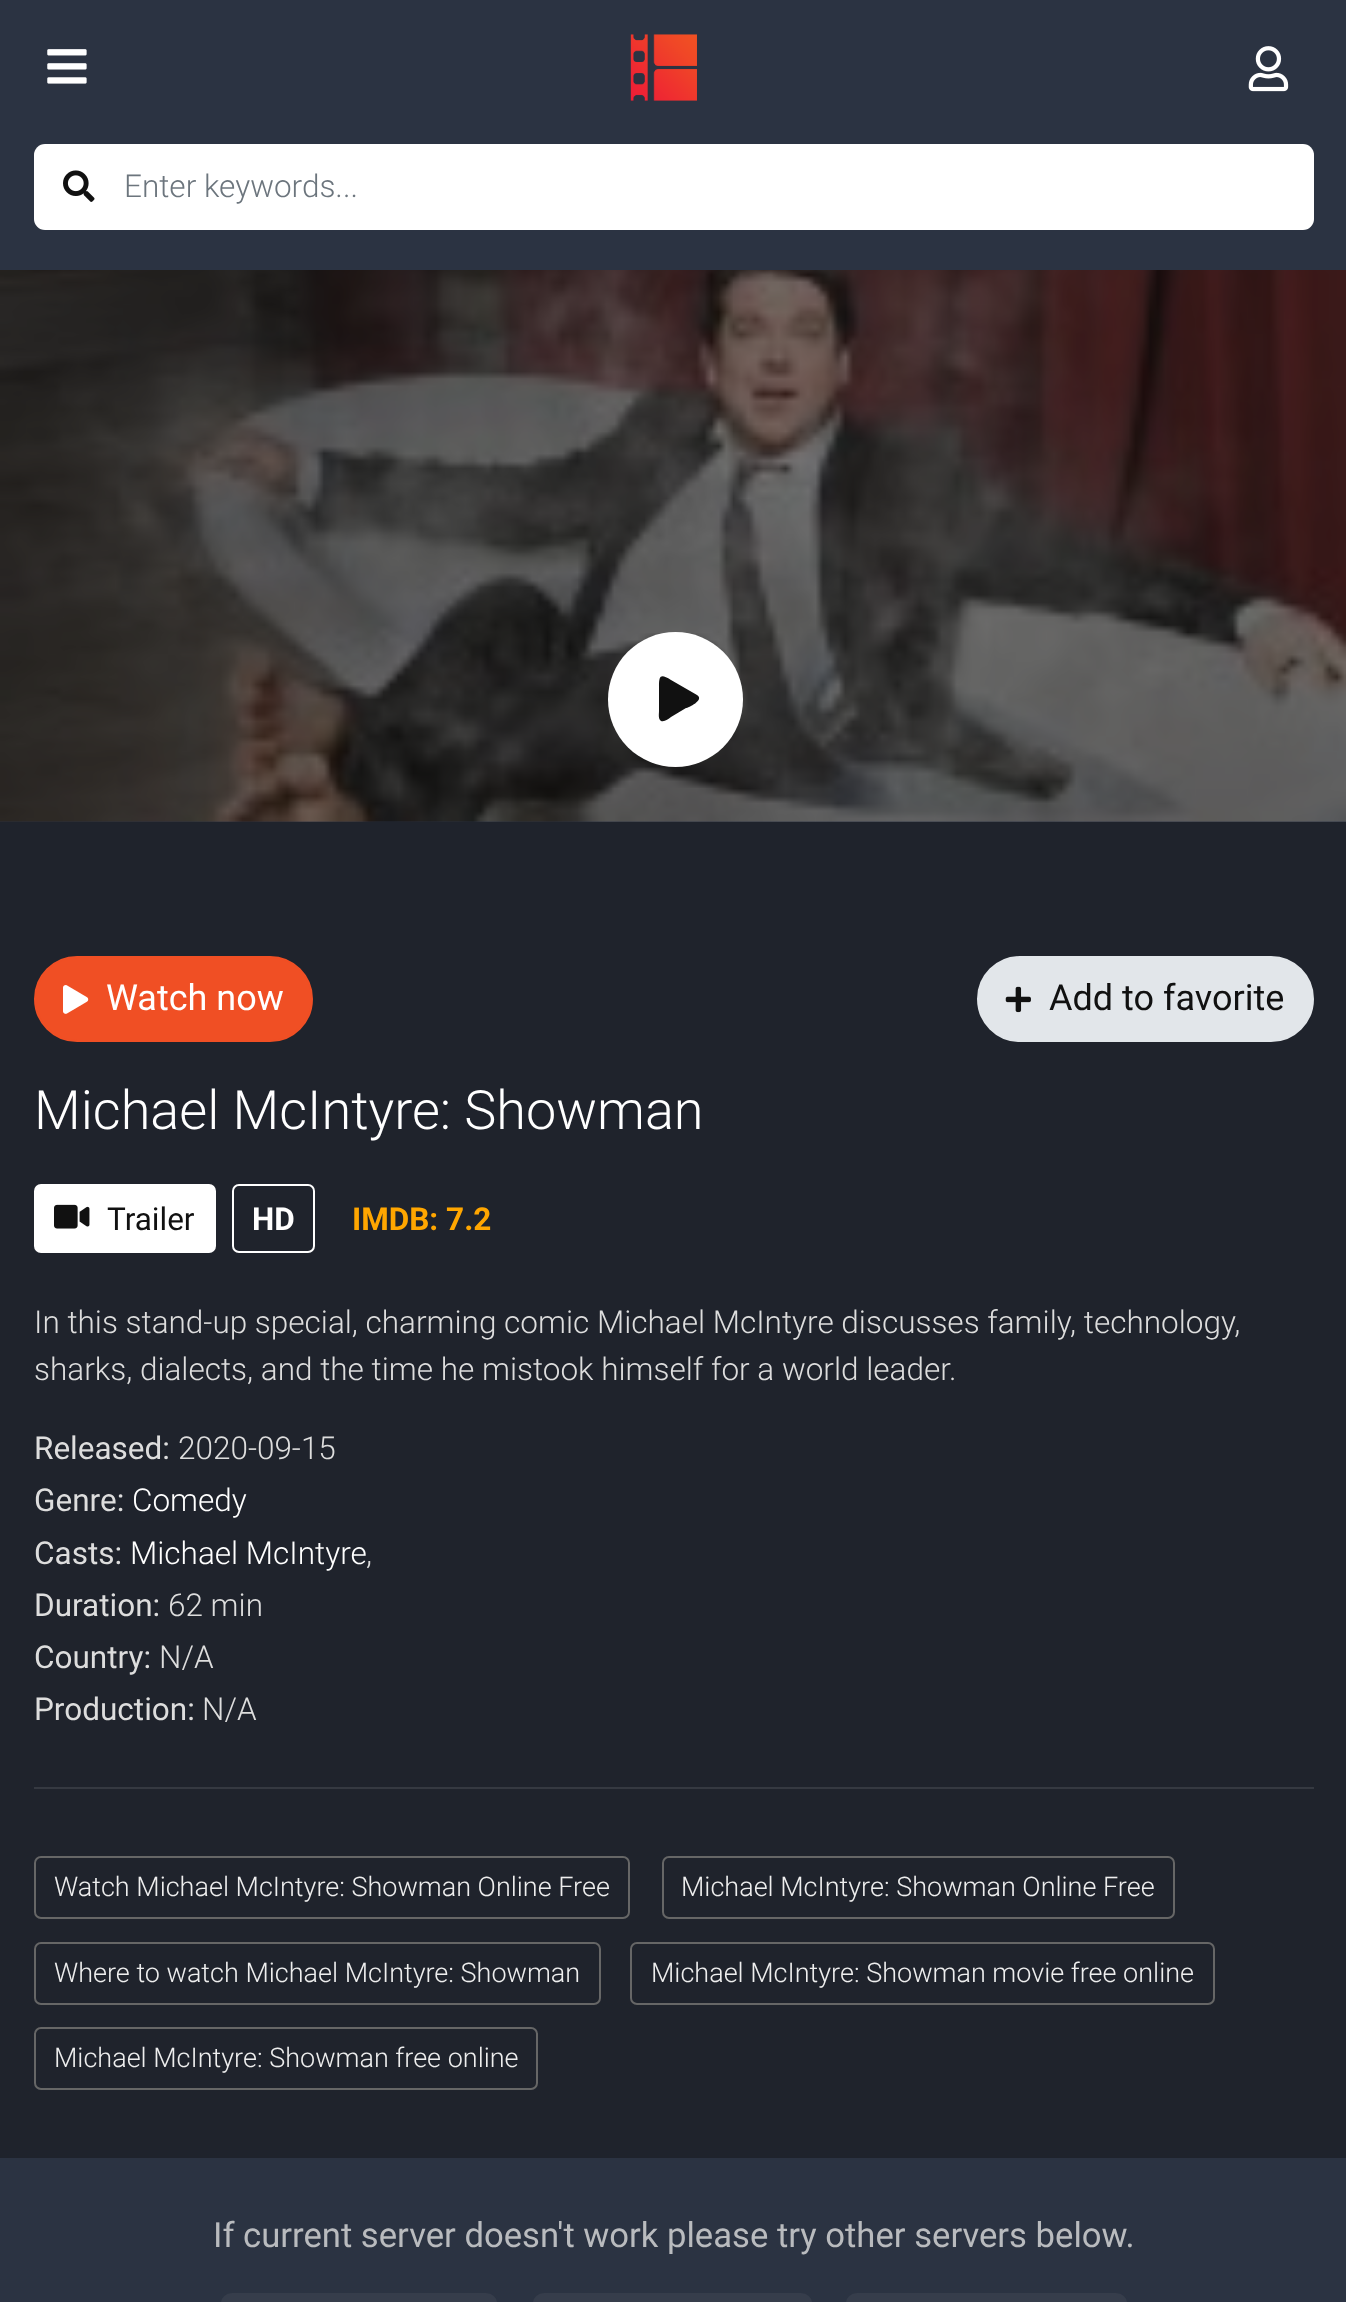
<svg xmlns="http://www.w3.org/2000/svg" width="1346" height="2302">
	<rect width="100%" height="100%" fill="#1F232C" />
	<rect x="0" y="0" width="1346" height="270" fill="#2B3342" />
	<image x="47" y="49" width="40" height="35" href="assets/img1.png" />
	<image x="630" y="34" width="67" height="67" href="assets/img2.png" />
	<image x="1248" y="46" width="41" height="46" href="assets/img3.png" />
	<rect x="34" y="144" width="1280" height="86" rx="11" fill="#FFFFFF" />
	<image x="63" y="170" width="32" height="32" href="assets/img4.png" />
	<text x="124" y="197" font-family="Roboto" font-size="31.5" font-weight="300" fill="#6C757D">Enter keywords...</text>
	<image x="0" y="270" width="1346" height="552" href="assets/img5.png" />
	<circle cx="675.5" cy="699.5" r="67.5" fill="#FFFFFF" />
	<path d="M697 695C705 700 688 708 686 708L671 717C668 719 665 722 661 721C658 719 659 714 659 711V686C659 675 661 674 671 680Z" fill="#111111" />
	<rect x="34" y="1787" width="1280" height="2" fill="#353941" />
	<rect x="35" y="957" width="277" height="84" rx="42" fill="#F04F24" stroke="#F04F24" stroke-width="2" />
	<image x="63" y="985" width="26" height="29" href="assets/img6.png" />
	<text x="106" y="1010" font-family="Roboto" font-size="36" fill="#FFFFFF">Watch now</text>
	<rect x="978" y="957" width="335" height="84" rx="42" fill="#E2E6EA" stroke="#E2E6EA" stroke-width="2" />
	<image x="1005" y="986" width="26" height="27" href="assets/img7.png" />
	<text x="1049" y="1010" font-family="Roboto" font-size="36" fill="#111111">Add to favorite</text>
	<text x="34" y="1129" font-family="Roboto" font-size="54" font-weight="300" fill="#FFFFFF">Michael McIntyre: Showman</text>
	<rect x="34" y="1184" width="182" height="69" rx="7" fill="#FFFFFF" />
	<image x="54" y="1204" width="36" height="25" href="assets/img8.png" />
	<text x="107" y="1230" font-family="Roboto" font-size="31.5" fill="#111111">Trailer</text>
	<rect x="233" y="1185" width="81" height="67" rx="6" fill="none" stroke="#FFFFFF" stroke-width="2" />
	<text x="252" y="1230" font-family="Roboto" font-size="31.5" font-weight="700" fill="#FFFFFF">HD</text>
	<text x="352" y="1230" font-family="Roboto" font-size="31.5" font-weight="700" fill="#FFA600">IMDB: 7.2</text>
	<g font-family="Roboto" font-size="31.5" font-weight="300" fill="#DDDDDD">
		<text x="34" y="1333">In this stand-up special, charming comic Michael McIntyre discusses family, technology,</text>
		<text x="34" y="1380">sharks, dialects, and the time he mistook himself for a world leader.</text>
	</g>
	<text x="34" y="1459" font-family="Roboto" font-size="31.5" fill="#DDDDDD">Released:</text>
	<text x="178" y="1459" font-family="Roboto" font-size="31.5" font-weight="300" fill="#DDDDDD">2020-09-15</text>
	<text x="34" y="1511" font-family="Roboto" font-size="31.5" fill="#DDDDDD">Genre:</text>
	<text x="132" y="1511" font-family="Roboto" font-size="31.5" font-weight="300" fill="#FFFFFF">Comedy</text>
	<text x="34" y="1564" font-family="Roboto" font-size="31.5" fill="#DDDDDD">Casts:</text>
	<text x="130" y="1564" font-family="Roboto" font-size="31.5" font-weight="300" fill="#FFFFFF">Michael McIntyre</text>
	<text x="366" y="1564" font-family="Roboto" font-size="31.5" font-weight="300" fill="#DDDDDD">,</text>
	<text x="34" y="1616" font-family="Roboto" font-size="31.5" fill="#DDDDDD">Duration:</text>
	<text x="168" y="1616" font-family="Roboto" font-size="31.5" font-weight="300" fill="#DDDDDD">62 min</text>
	<text x="34" y="1668" font-family="Roboto" font-size="31.5" fill="#DDDDDD">Country:</text>
	<text x="159" y="1668" font-family="Roboto" font-size="31.5" font-weight="300" fill="#DDDDDD">N/A</text>
	<text x="34" y="1720" font-family="Roboto" font-size="31.5" fill="#DDDDDD">Production:</text>
	<text x="202" y="1720" font-family="Roboto" font-size="31.5" font-weight="300" fill="#DDDDDD">N/A</text>
	<rect x="35" y="1857" width="594" height="61" rx="6" fill="none" stroke="#666666" stroke-width="2" />
	<text x="54" y="1896" font-family="Roboto" font-size="27" font-weight="300" fill="#EEEEEE">Watch Michael McIntyre: Showman Online Free</text>
	<rect x="663" y="1857" width="511" height="61" rx="6" fill="none" stroke="#666666" stroke-width="2" />
	<text x="681" y="1896" font-family="Roboto" font-size="27" font-weight="300" fill="#EEEEEE">Michael McIntyre: Showman Online Free</text>
	<rect x="35" y="1943" width="565" height="61" rx="6" fill="none" stroke="#666666" stroke-width="2" />
	<text x="54" y="1982" font-family="Roboto" font-size="27" font-weight="300" fill="#EEEEEE">Where to watch Michael McIntyre: Showman</text>
	<rect x="631" y="1943" width="583" height="61" rx="6" fill="none" stroke="#666666" stroke-width="2" />
	<text x="651" y="1982" font-family="Roboto" font-size="27" font-weight="300" fill="#EEEEEE">Michael McIntyre: Showman movie free online</text>
	<rect x="35" y="2028" width="502" height="61" rx="6" fill="none" stroke="#666666" stroke-width="2" />
	<text x="54" y="2067" font-family="Roboto" font-size="27" font-weight="300" fill="#EEEEEE">Michael McIntyre: Showman free online</text>
	<rect x="0" y="2158" width="1346" height="144" fill="#2B3342" />
	<text x="213" y="2247" font-family="Roboto" font-size="34.65" fill="#B9BBBE">If current server doesn't work please try other servers below.</text>
	<rect x="221" y="2293" width="276" height="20" rx="11" fill="#363D4B" />
	<rect x="533" y="2293" width="279" height="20" rx="11" fill="#363D4B" />
	<rect x="846" y="2293" width="281" height="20" rx="11" fill="#363D4B" />
</svg>
